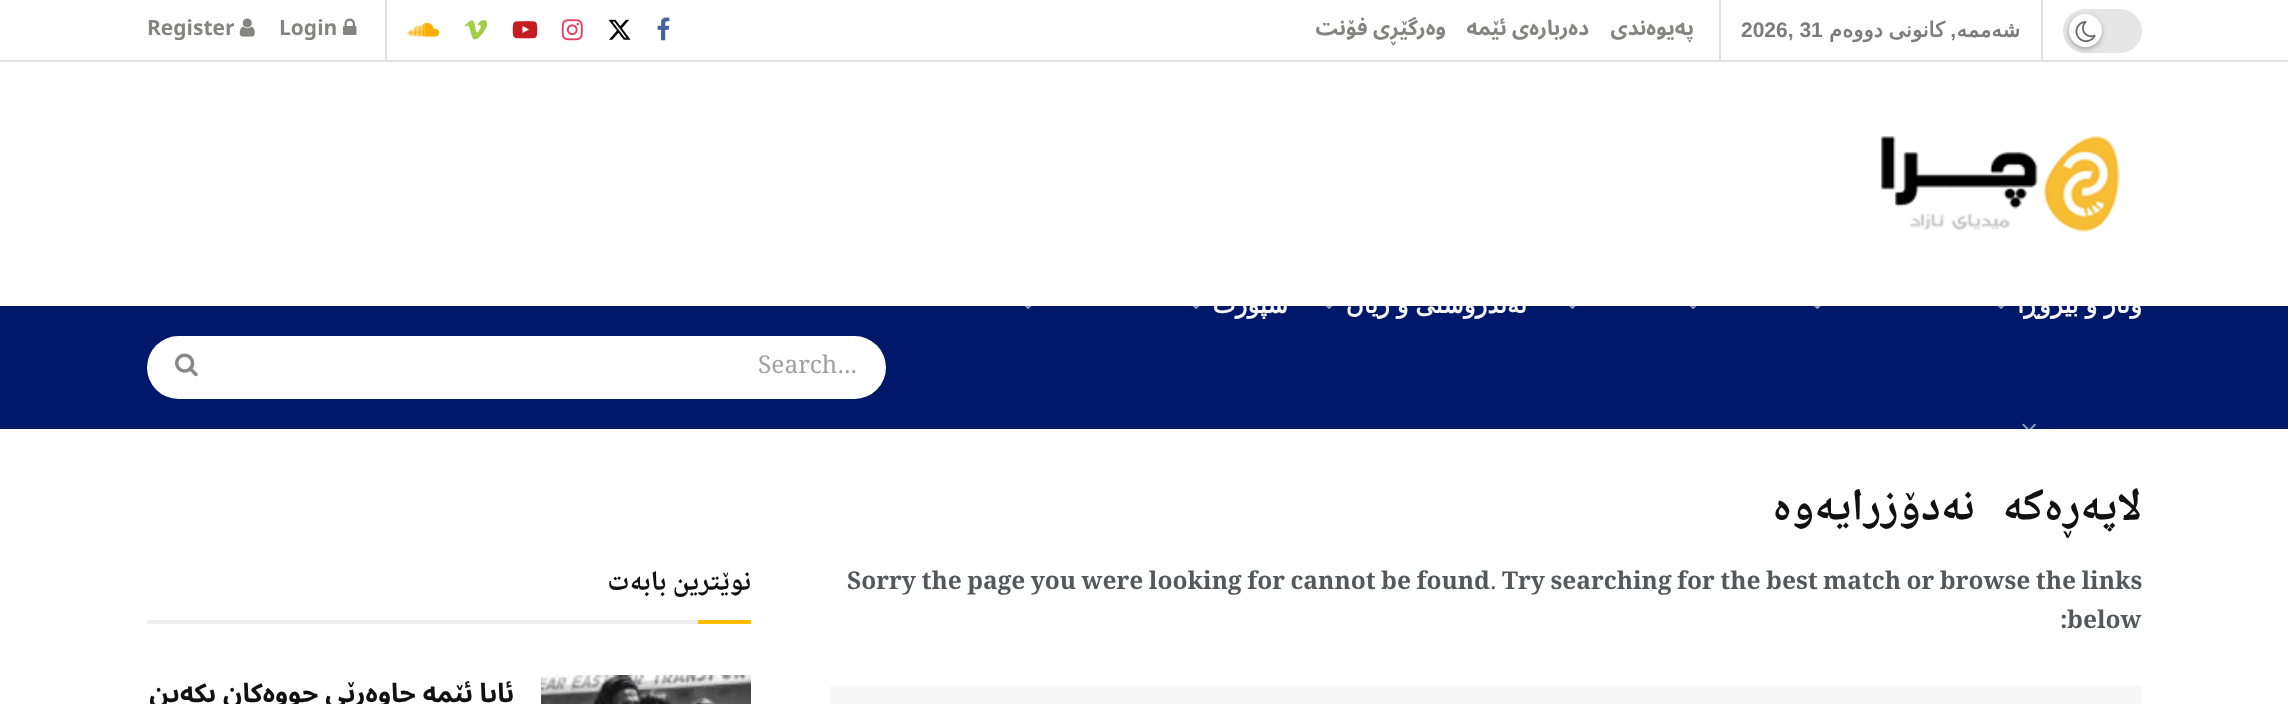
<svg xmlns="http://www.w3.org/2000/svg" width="2288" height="704">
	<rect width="100%" height="100%" fill="#FFFFFF" />
	<rect x="0" y="60" width="2288" height="2" fill="#E0E0E0" />
	<rect x="2063" y="9" width="79" height="44" rx="22" fill="#E6E6E6" />
	<rect x="2069" y="16" width="33" height="33" rx="16.5" fill="#000000" fill-opacity="0.3" filter="blur(2.5px)" />
	<circle cx="2085.5" cy="30.5" r="16.5" fill="#FFFFFF" />
	<image x="2075" y="21" width="21" height="21" href="assets/img1.png" />
	<rect x="2041" y="0" width="2" height="60" fill="#E0E0E0" />
	<text x="2020" y="37" font-family="DejaVu Sans" font-size="21" font-weight="700" direction="rtl" fill="#7C7C7C">شەممە</text>
	<text x="1956" y="37" font-family="Liberation Sans" font-size="21" font-weight="700" direction="rtl" fill="#7C7C7C">,</text>
	<g font-family="DejaVu Sans" font-size="21" font-weight="700" direction="rtl" fill="#7C7C7C">
		<text x="1945" y="37" word-spacing="-1">كانونی دووه</text>
		<text x="1842" y="37">م</text>
	</g>
	<text x="1741" y="37" font-family="Liberation Sans" font-size="21" font-weight="700" fill="#7C7C7C">2026, 31</text>
	<rect x="1719" y="0" width="2" height="60" fill="#E0E0E0" />
	<g font-family="Noto Sans Arabic" font-size="21" font-weight="700" direction="rtl" fill="#848582">
		<text x="1694" y="35">پەیوەندی</text>
		<text x="1589" y="35">دەربارەی ئێمە</text>
		<text x="1446" y="35">وەرگێڕی فۆنت</text>
	</g>
	<image x="657" y="17" width="13" height="24" href="assets/img2.png" />
	<image x="608" y="19" width="23" height="21" href="assets/img3.png" />
	<image x="561" y="19" width="22" height="22" href="assets/img4.png" />
	<image x="512" y="21" width="26" height="18" href="assets/img5.png" />
	<image x="465" y="20" width="23" height="20" href="assets/img6.png" />
	<image x="407" y="22" width="33" height="15" href="assets/img7.png" />
	<rect x="385" y="0" width="2" height="60" fill="#E0E0E0" />
	<image x="343" y="18" width="14" height="17" href="assets/img8.png" />
	<text x="279" y="35" font-family="Noto Sans Arabic" font-size="21" font-weight="700" fill="#848582">Login</text>
	<image x="239" y="18" width="16" height="19" href="assets/img9.png" />
	<text x="147" y="35" font-family="Noto Sans Arabic" font-size="21" font-weight="700" fill="#848582">Register</text>
	<rect x="0" y="306" width="2288" height="123" fill="#001869" />
	<g font-family="DejaVu Sans" font-size="24.5" font-weight="700" direction="rtl" fill="#F5F5F5">
		<text x="2142" y="313" word-spacing="-1">وتار و بیروڕا</text>
		<text x="1527" y="313" word-spacing="-1">تەندروستی و ژیان</text>
		<text x="1288" y="313">سپۆرت</text>
	</g>
	<rect x="1215" y="294" width="923" height="12" fill="#FFFFFF" />
	<image x="1880" y="136" width="240" height="96" href="assets/img10.png" />
	<image x="1998" y="306" width="7" height="3" href="assets/img11.png" />
	<image x="1814" y="306" width="7" height="4" href="assets/img12.png" />
	<image x="1690" y="306" width="7" height="3" href="assets/img11.png" />
	<image x="1569" y="306" width="7" height="4" href="assets/img12.png" />
	<image x="1326" y="306" width="7" height="3" href="assets/img11.png" />
	<image x="1193" y="306" width="7" height="3" href="assets/img11.png" />
	<image x="1025" y="306" width="7" height="3" href="assets/img11.png" />
	<image x="2022" y="423" width="14" height="6" href="assets/img13.png" />
	<rect x="147" y="336" width="739" height="63" rx="31.5" fill="#FFFFFF" />
	<text x="758" y="373" font-family="Noto Naskh Arabic" font-size="24.5" fill="#A0A0A0">Search...</text>
	<image x="175" y="353" width="23" height="24" href="assets/img14.png" />
	<text x="2142" y="520" word-spacing="18" font-family="Noto Naskh Arabic" font-size="45.5" font-weight="700" letter-spacing="-0.9" direction="rtl" fill="#111111">لاپەڕەکە نەدۆزرایەوە</text>
	<g font-family="Noto Naskh Arabic" font-size="24.5" font-weight="700" fill="#53585C">
		<text x="847" y="589">Sorry the page you were looking for cannot be found. Try searching for the best match or browse the links</text>
		<text x="2067" y="628">below</text>
		<text x="2060" y="628">:</text>
	</g>
	<rect x="830" y="686" width="1312" height="18" fill="#F7F7F7" />
	<rect x="147" y="620" width="551" height="4" fill="#EEEEEE" />
	<text x="751" y="590" font-family="Noto Naskh Arabic" font-size="28" font-weight="700" direction="rtl" fill="#111111">نوێترین بابەت</text>
	<rect x="698" y="620" width="53" height="4" fill="#FFBD00" />
	<image x="541" y="675" width="210" height="29" href="assets/img15.png" />
	<text x="514" y="702" font-family="Noto Sans Arabic" font-size="26.25" font-weight="700" direction="rtl" fill="#111111">ئایا ئێمە چاوەڕێی جووەکان بکەین</text>
</svg>
